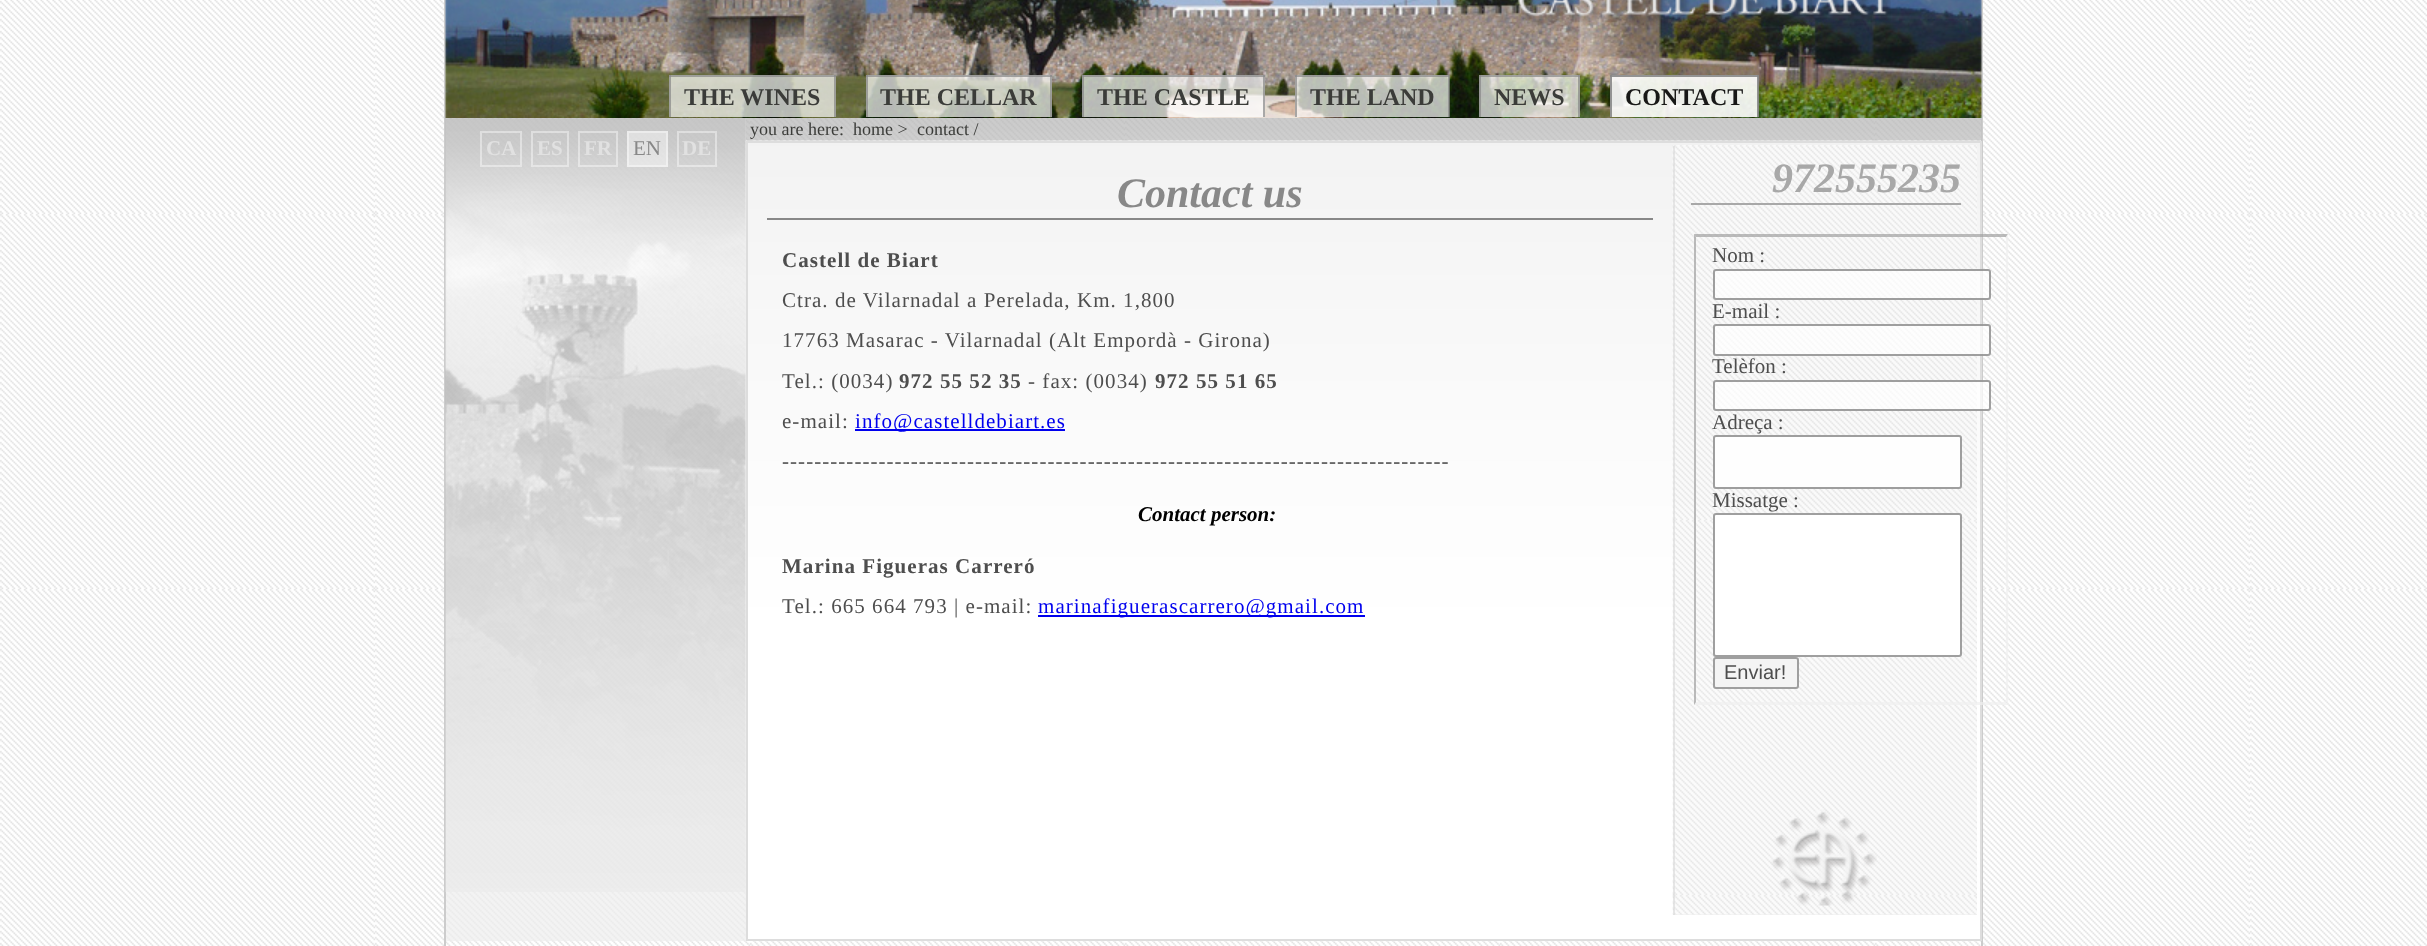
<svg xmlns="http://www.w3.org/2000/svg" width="2427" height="946">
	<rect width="100%" height="100%" fill="#FFFFFF" />
	<image x="0" y="0" width="2427" height="946" href="assets/img1.png" />
	<rect x="445" y="-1" width="1537" height="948" fill="none" stroke="#CCCCCC" stroke-width="2" />
	<image x="445" y="0" width="1537" height="118" href="assets/img2.png" />
	<image x="1517" y="0" width="374" height="26" href="assets/img3.png" />
	<rect x="669" y="75" width="167" height="42" fill="#FFFFFF" fill-opacity="0.7" />
	<text x="684" y="105" font-family="Liberation Serif" font-size="24" font-weight="700" fill="#3B3C39">THE WINES</text>
	<rect x="669" y="75" width="167" height="2" fill="#888888" fill-opacity="0.7" />
	<rect x="834" y="75" width="2" height="42" fill="#888888" fill-opacity="0.7" />
	<rect x="669" y="75" width="2" height="42" fill="#888888" fill-opacity="0.7" />
	<rect x="866" y="75" width="186" height="42" fill="#FFFFFF" fill-opacity="0.7" />
	<text x="880" y="105" font-family="Liberation Serif" font-size="24" font-weight="700" fill="#3B3C39">THE CELLAR</text>
	<rect x="866" y="75" width="186" height="2" fill="#888888" fill-opacity="0.7" />
	<rect x="1050" y="75" width="2" height="42" fill="#888888" fill-opacity="0.7" />
	<rect x="866" y="75" width="2" height="42" fill="#888888" fill-opacity="0.7" />
	<rect x="1082" y="75" width="183" height="42" fill="#FFFFFF" fill-opacity="0.7" />
	<text x="1097" y="105" font-family="Liberation Serif" font-size="24" font-weight="700" fill="#3B3C39">THE CASTLE</text>
	<rect x="1082" y="75" width="183" height="2" fill="#888888" fill-opacity="0.7" />
	<rect x="1263" y="75" width="2" height="42" fill="#888888" fill-opacity="0.7" />
	<rect x="1082" y="75" width="2" height="42" fill="#888888" fill-opacity="0.7" />
	<rect x="1295" y="75" width="154" height="42" fill="#FFFFFF" fill-opacity="0.7" />
	<text x="1310" y="105" font-family="Liberation Serif" font-size="24" font-weight="700" fill="#3B3C39">THE LAND</text>
	<rect x="1295" y="75" width="154" height="2" fill="#888888" fill-opacity="0.7" />
	<rect x="1448" y="75" width="2" height="42" fill="#888888" fill-opacity="0.7" />
	<rect x="1295" y="75" width="2" height="42" fill="#888888" fill-opacity="0.7" />
	<rect x="1479" y="75" width="101" height="42" fill="#FFFFFF" fill-opacity="0.7" />
	<text x="1494" y="105" font-family="Liberation Serif" font-size="24" font-weight="700" fill="#3B3C39">NEWS</text>
	<rect x="1479" y="75" width="101" height="2" fill="#888888" fill-opacity="0.7" />
	<rect x="1578" y="75" width="2" height="42" fill="#888888" fill-opacity="0.7" />
	<rect x="1479" y="75" width="2" height="42" fill="#888888" fill-opacity="0.7" />
	<rect x="1610" y="75" width="148" height="42" fill="#FFFFFF" fill-opacity="0.9" />
	<text x="1625" y="105" font-family="Liberation Serif" font-size="24" font-weight="700" fill="#181817">CONTACT</text>
	<rect x="1610" y="75" width="148" height="2" fill="#888888" fill-opacity="0.9" />
	<rect x="1757" y="75" width="2" height="42" fill="#888888" fill-opacity="0.9" />
	<rect x="1610" y="75" width="2" height="42" fill="#888888" fill-opacity="0.9" />
	<image x="745" y="142" width="1235" height="465" href="assets/img6.png" />
	<rect x="446" y="119" width="300" height="822" fill="#EEEEEE" fill-opacity="0.7" />
	<image x="445" y="118" width="301" height="774" href="assets/img4.png" />
	<rect x="481" y="132" width="40" height="34" fill="none" stroke="#FFFFFF" stroke-opacity="0.42" stroke-width="2" />
	<text x="486" y="155" font-family="Liberation Serif" font-size="21" font-weight="700" fill="#E1E1E1">CA</text>
	<rect x="532" y="132" width="36" height="34" fill="none" stroke="#FFFFFF" stroke-opacity="0.42" stroke-width="2" />
	<text x="537" y="155" font-family="Liberation Serif" font-size="21" font-weight="700" fill="#E1E1E1">ES</text>
	<rect x="579" y="132" width="38" height="34" fill="none" stroke="#FFFFFF" stroke-opacity="0.42" stroke-width="2" />
	<text x="584" y="155" font-family="Liberation Serif" font-size="21" font-weight="700" fill="#E1E1E1">FR</text>
	<rect x="627" y="131" width="41" height="36" fill="#FFFFFF" fill-opacity="0.42" />
	<rect x="628" y="132" width="39" height="34" fill="none" stroke="#FFFFFF" stroke-opacity="0.42" stroke-width="2" />
	<text x="633" y="155" font-family="Liberation Serif" font-size="21" fill="#888888">EN</text>
	<rect x="678" y="132" width="38" height="34" fill="none" stroke="#FFFFFF" stroke-opacity="0.42" stroke-width="2" />
	<text x="682" y="155" font-family="Liberation Serif" font-size="21" font-weight="700" fill="#E1E1E1">DE</text>
	<image x="745" y="118" width="1237" height="23" href="assets/img5.png" />
	<g font-family="Liberation Serif" font-size="18" fill="#3B3C39">
		<text x="750" y="135">you are here:</text>
		<text x="853" y="135">home &gt;</text>
		<text x="917" y="135">contact /</text>
	</g>
	<rect x="748" y="607" width="1232" height="332" fill="#FFFFFF" />
	<rect x="747" y="142" width="1234" height="798" fill="none" stroke="#DDDDDD" stroke-width="2" />
	<rect x="767" y="218" width="886" height="2" fill="#888888" />
	<text x="1117" y="207" font-family="Liberation Serif" font-size="42" font-weight="700" font-style="italic" fill="#888888">Contact us</text>
	<text x="782" y="267" font-family="Liberation Serif" font-size="21" font-weight="700" letter-spacing="1.05" fill="#4E4E4E">Castell de Biart</text>
	<g font-family="Liberation Serif" font-size="21" letter-spacing="1.05" fill="#4E4E4E">
		<text x="782" y="307">Ctra. de Vilarnadal a Perelada, Km. 1,800</text>
		<text x="782" y="347">17763 Masarac - Vilarnadal (Alt Empordà - Girona)</text>
		<text x="782" y="388">Tel.: (0034)</text>
	</g>
	<text x="899" y="388" font-family="Liberation Serif" font-size="21" font-weight="700" letter-spacing="1.05" fill="#4E4E4E">972 55 52 35</text>
	<text x="1028" y="388" font-family="Liberation Serif" font-size="21" letter-spacing="1.05" fill="#4E4E4E">- fax: (0034)</text>
	<text x="1155" y="388" font-family="Liberation Serif" font-size="21" font-weight="700" letter-spacing="1.05" fill="#4E4E4E">972 55 51 65</text>
	<text x="782" y="428" font-family="Liberation Serif" font-size="21" letter-spacing="1.05" fill="#4E4E4E">e-mail:</text>
	<rect x="855" y="429" width="210" height="2" fill="#0000EE" />
	<text x="855" y="428" font-family="Liberation Serif" font-size="21" letter-spacing="1.05" fill="#0000EE">info@castelldebiart.es</text>
	<text x="782" y="468" font-family="Liberation Serif" font-size="21" letter-spacing="1.05" fill="#4E4E4E">-----------------------------------------------------------------------------------</text>
	<text x="1138" y="521" font-family="Liberation Serif" font-size="21" font-weight="700" font-style="italic" fill="#000000">Contact person:</text>
	<text x="782" y="573" font-family="Liberation Serif" font-size="21" font-weight="700" letter-spacing="1.05" fill="#4E4E4E">Marina Figueras Carreró</text>
	<text x="782" y="613" font-family="Liberation Serif" font-size="21" letter-spacing="1.05" fill="#4E4E4E">Tel.: 665 664 793 | e-mail:</text>
	<rect x="1038" y="615" width="327" height="2" fill="#0000EE" />
	<text x="1038" y="613" font-family="Liberation Serif" font-size="21" letter-spacing="1.05" fill="#0000EE">marinafiguerascarrero@gmail.com</text>
	<rect x="1673" y="146" width="304" height="769" fill="#EAEAEA" fill-opacity="0.7" />
	<image x="1672" y="145" width="305" height="770" href="assets/img7.png" />
	<rect x="1673" y="146" width="2" height="769" fill="#DDDDDD" fill-opacity="0.7" />
	<rect x="1691" y="203" width="270" height="2" fill="#A8A8A8" />
	<text x="1772" y="192" font-family="Liberation Serif" font-size="42" font-weight="700" font-style="italic" fill="#A8A8A8">972555235</text>
	<path d="M1694 234H2008L2006 237H1696Z" fill="#9F9F9F" fill-opacity="0.7" />
	<path d="M2008 234V705L2006 702V237Z" fill="#EFEFEF" fill-opacity="0.7" />
	<path d="M2008 705H1694L1696 702H2006Z" fill="#EFEFEF" fill-opacity="0.7" />
	<path d="M1694 705V234L1696 237V702Z" fill="#9F9F9F" fill-opacity="0.7" />
	<text x="1712" y="262" font-family="Liberation Serif" font-size="21" fill="#4E4E4E">Nom :</text>
	<rect x="1713" y="269" width="278" height="31" rx="3" fill="#FFFFFF" fill-opacity="0.7" />
	<rect x="1714" y="270" width="276" height="29" rx="2" fill="none" stroke="#767676" stroke-opacity="0.7" stroke-width="2" />
	<text x="1712" y="318" font-family="Liberation Serif" font-size="21" fill="#4E4E4E">E-mail :</text>
	<rect x="1713" y="324" width="278" height="32" rx="3" fill="#FFFFFF" fill-opacity="0.7" />
	<rect x="1714" y="325" width="276" height="30" rx="2" fill="none" stroke="#767676" stroke-opacity="0.7" stroke-width="2" />
	<text x="1712" y="373" font-family="Liberation Serif" font-size="21" fill="#4E4E4E">Telèfon :</text>
	<rect x="1713" y="380" width="278" height="31" rx="3" fill="#FFFFFF" fill-opacity="0.7" />
	<rect x="1714" y="381" width="276" height="29" rx="2" fill="none" stroke="#767676" stroke-opacity="0.7" stroke-width="2" />
	<text x="1712" y="429" font-family="Liberation Serif" font-size="21" fill="#4E4E4E">Adreça :</text>
	<rect x="1714" y="436" width="247" height="52" rx="2" fill="#FEFEFE" stroke="#9E9E9E" stroke-width="2" />
	<text x="1712" y="507" font-family="Liberation Serif" font-size="21" fill="#4E4E4E">Missatge :</text>
	<rect x="1714" y="514" width="247" height="142" rx="2" fill="#FFFFFF" stroke="#9F9F9F" stroke-width="2" />
	<rect x="1714" y="658" width="84" height="30" rx="2" fill="#F4F4F4" stroke="#9F9F9F" stroke-width="2" />
	<text x="1724" y="679" font-family="Liberation Sans" font-size="20" fill="#4E4E4E">Enviar!</text>
	<image x="1770" y="809" width="107" height="97" href="assets/img8.png" />
</svg>
